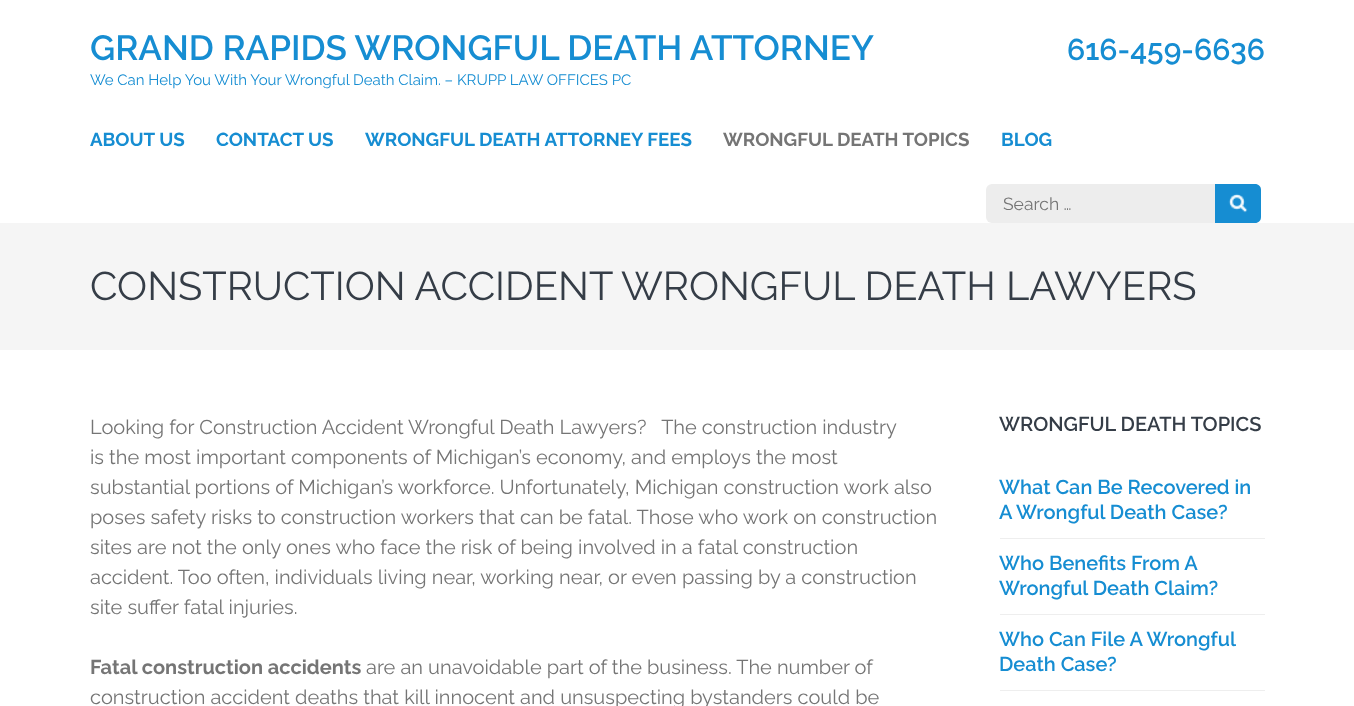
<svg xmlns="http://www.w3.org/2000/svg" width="1354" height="706">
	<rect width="100%" height="100%" fill="#FFFFFF" />
	<text x="90" y="60" font-family="Raleway" font-size="35" font-weight="600" fill="#168DD2">GRAND RAPIDS WRONGFUL DEATH ATTORNEY</text>
	<text x="90" y="85" font-family="Raleway" font-size="15" fill="#168DD2">We Can Help You With Your Wrongful Death Claim. – KRUPP LAW OFFICES PC</text>
	<text x="1067" y="60" font-family="Raleway" font-size="30" font-weight="600" fill="#168DD2">616-459-6636</text>
	<g font-family="Raleway" font-size="18.75" font-weight="700" fill="#168DD2">
		<text x="90" y="146">ABOUT US</text>
		<text x="216" y="146">CONTACT US</text>
		<text x="365" y="146">WRONGFUL DEATH ATTORNEY FEES</text>
	</g>
	<text x="723" y="146" font-family="Raleway" font-size="18.75" font-weight="700" fill="#757575">WRONGFUL DEATH TOPICS</text>
	<text x="1001" y="146" font-family="Raleway" font-size="18.75" font-weight="700" fill="#168DD2">BLOG</text>
	<rect x="986" y="184" width="275" height="39" rx="6" fill="#EDEDED" />
	<text x="1003" y="210" font-family="Raleway" font-size="17.5" fill="#757575">Search …</text>
	<path d="M1215 184H1255C1258.5 184 1261 186.5 1261 190V217C1261 220.5 1258.5 223 1255 223H1215Z" fill="#168DD2" />
	<image x="1228" y="193" width="20" height="20" href="assets/img1.png" />
	<rect x="0" y="223" width="1354" height="127" fill="#F5F5F5" />
	<text x="90" y="300" font-family="Raleway" font-size="40" fill="#353D47">CONSTRUCTION ACCIDENT WRONGFUL DEATH LAWYERS</text>
	<g font-family="Raleway" font-size="20" fill="#757575">
		<text x="90" y="434" xml:space="preserve">Looking for Construction Accident Wrongful Death Lawyers?   The construction industry</text>
		<text x="90" y="464">is the most important components of Michigan’s economy, and employs the most</text>
		<text x="90" y="494">substantial portions of Michigan’s workforce. Unfortunately, Michigan construction work also</text>
		<text x="90" y="524">poses safety risks to construction workers that can be fatal. Those who work on construction</text>
		<text x="90" y="554">sites are not the only ones who face the risk of being involved in a fatal construction</text>
		<text x="90" y="584">accident. Too often, individuals living near, working near, or even passing by a construction</text>
		<text x="90" y="614">site suffer fatal injuries.</text>
	</g>
	<text x="90" y="674" font-family="Raleway" font-size="20" font-weight="700" fill="#757575">Fatal construction accidents</text>
	<g font-family="Raleway" font-size="20" fill="#757575">
		<text x="366" y="674">are an unavoidable part of the business. The number of</text>
		<text x="90" y="704">construction accident deaths that kill innocent and unsuspecting bystanders could be</text>
	</g>
	<text x="999" y="431" font-family="Raleway" font-size="20" font-weight="600" fill="#353D47">WRONGFUL DEATH TOPICS</text>
	<rect x="1000" y="538" width="265" height="1" fill="#EEEEEE" />
	<g font-family="Raleway" font-size="20" font-weight="600" fill="#168DD2">
		<text x="999" y="494">What Can Be Recovered in</text>
		<text x="999" y="519">A Wrongful Death Case?</text>
	</g>
	<rect x="1000" y="614" width="265" height="1" fill="#EEEEEE" />
	<g font-family="Raleway" font-size="20" font-weight="600" fill="#168DD2">
		<text x="999" y="570">Who Benefits From A</text>
		<text x="999" y="595">Wrongful Death Claim?</text>
	</g>
	<rect x="1000" y="690" width="265" height="1" fill="#EEEEEE" />
	<g font-family="Raleway" font-size="20" font-weight="600" fill="#168DD2">
		<text x="999" y="646">Who Can File A Wrongful</text>
		<text x="999" y="671">Death Case?</text>
	</g>
</svg>
